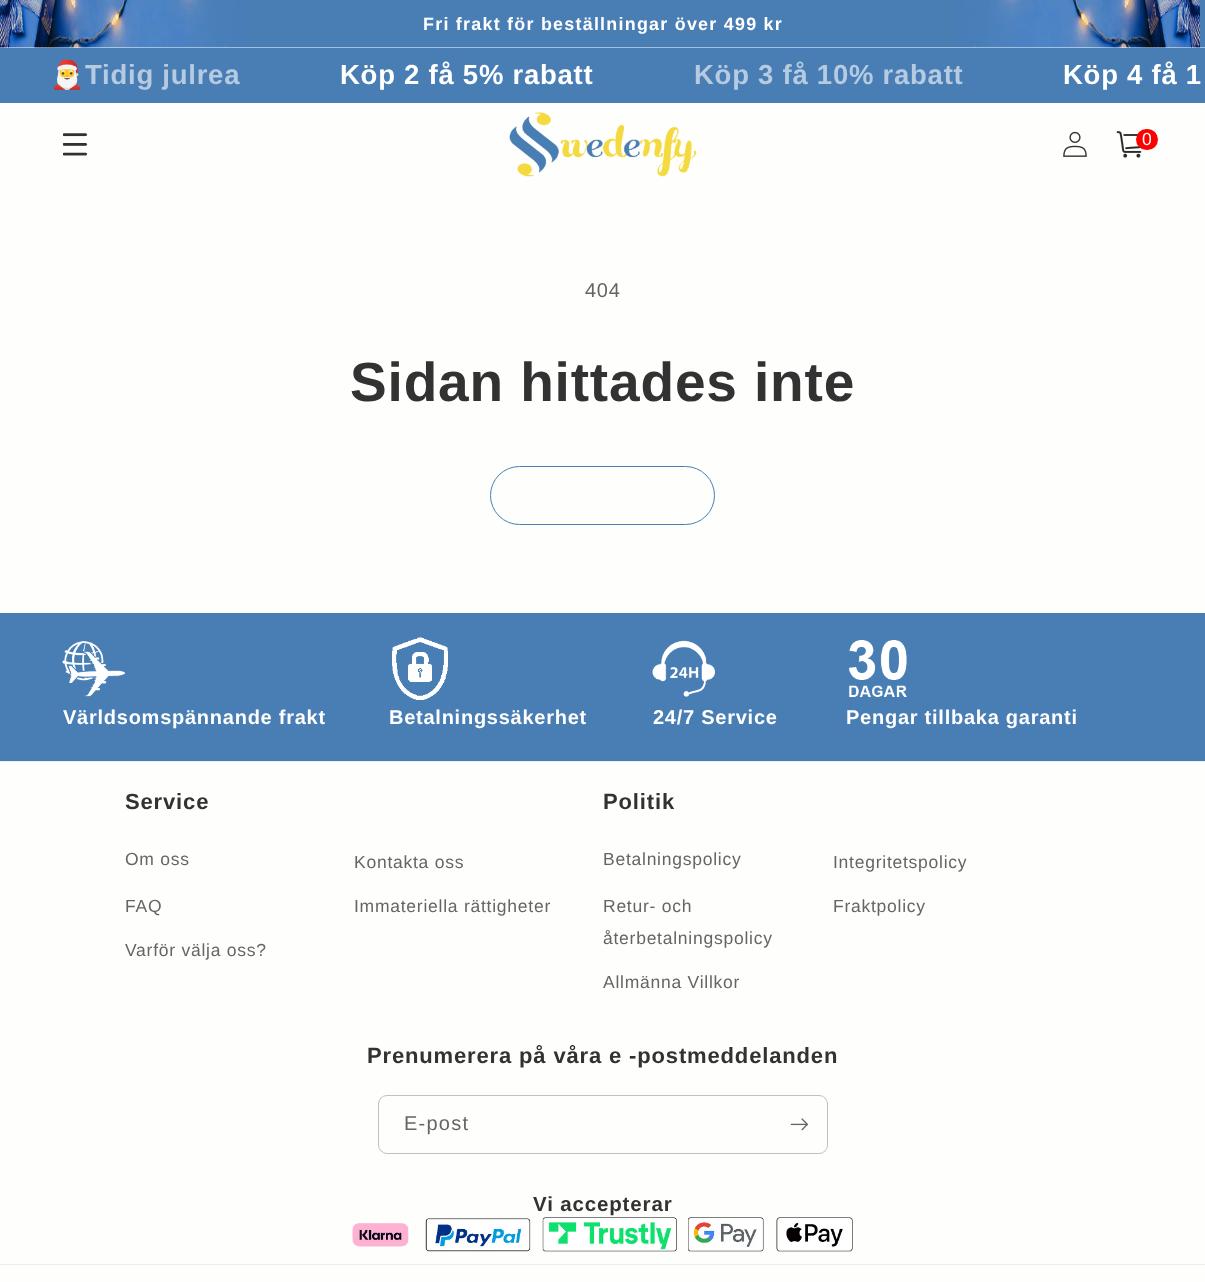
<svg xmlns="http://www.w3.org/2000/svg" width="1205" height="1282">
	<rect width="100%" height="100%" fill="#FEFEFC" />
	<image x="0" y="0" width="1205" height="48" href="assets/img1.png" />
	<text x="423" y="30" font-family="Liberation Sans" font-size="17.9" font-weight="700" letter-spacing="1.25" fill="#FFFFFF">Fri frakt för beställningar över 499 kr</text>
	<rect x="0" y="48" width="1205" height="55" fill="#497EB5" />
	<text x="50" y="84" font-family="Noto Color Emoji" font-size="27.5" font-weight="700" letter-spacing="0.75" fill="#B6CBE1">🎅</text>
	<text x="85" y="84" font-family="Liberation Sans" font-size="27.5" font-weight="700" letter-spacing="0.75" fill="#B6CBE1">Tidig julrea</text>
	<text x="340" y="84" font-family="Liberation Sans" font-size="27.5" font-weight="700" letter-spacing="0.75" fill="#FFFFFF">Köp 2 få 5% rabatt</text>
	<text x="694" y="84" font-family="Liberation Sans" font-size="27.5" font-weight="700" letter-spacing="0.75" fill="#B6CBE1">Köp 3 få 10% rabatt</text>
	<text x="1063" y="84" font-family="Liberation Sans" font-size="27.5" font-weight="700" letter-spacing="0.75" fill="#FFFFFF">Köp 4 få 1</text>
	<image x="63" y="133" width="25" height="23" href="assets/img2.png" />
	<image x="509" y="112" width="188" height="65" href="assets/img3.png" />
	<image x="1063" y="131" width="24" height="26" href="assets/img4.png" />
	<image x="1116" y="131" width="26" height="27" href="assets/img5.png" />
	<rect x="1136" y="129" width="22" height="21" rx="10.5" fill="#FF0000" />
	<text x="1142" y="145" font-family="Liberation Sans" font-size="17.5" letter-spacing="0.75" fill="#FFFFFF">0</text>
	<text x="585" y="297" font-family="Liberation Sans" font-size="20" letter-spacing="0.75" fill="#656565">404</text>
	<text x="350" y="401" font-family="Liberation Sans" font-size="55" font-weight="700" letter-spacing="0.85" fill="#323232">Sidan hittades inte</text>
	<rect x="490.5" y="466.5" width="224" height="58" rx="29" fill="none" stroke="#497EB5" />
	<rect x="0" y="613" width="1205" height="148" fill="#497EB5" />
	<image x="62" y="641" width="63" height="56" href="assets/img6.png" />
	<text x="63" y="724" font-family="Liberation Sans" font-size="20" font-weight="700" letter-spacing="0.75" fill="#FFFFFF">Världsomspännande frakt</text>
	<image x="392" y="637" width="56" height="63" href="assets/img7.png" />
	<text x="389" y="724" font-family="Liberation Sans" font-size="20" font-weight="700" letter-spacing="0.75" fill="#FFFFFF">Betalningssäkerhet</text>
	<image x="652" y="640" width="63" height="57" href="assets/img8.png" />
	<text x="653" y="724" font-family="Liberation Sans" font-size="20" font-weight="700" letter-spacing="0.75" fill="#FFFFFF">24/7 Service</text>
	<image x="848" y="640" width="59" height="57" href="assets/img9.png" />
	<text x="846" y="724" font-family="Liberation Sans" font-size="20" font-weight="700" letter-spacing="0.75" fill="#FFFFFF">Pengar tillbaka garanti</text>
	<rect x="0" y="761" width="1205" height="1" fill="#EEEEEC" />
	<text x="125" y="809" font-family="Liberation Sans" font-size="22" font-weight="700" letter-spacing="0.85" fill="#323232">Service</text>
	<g font-family="Liberation Sans" font-size="17.5" letter-spacing="0.75" fill="#656565">
		<text x="125" y="865">Om oss</text>
		<text x="354" y="868">Kontakta oss</text>
		<text x="125" y="912">FAQ</text>
		<text x="354" y="912">Immateriella rättigheter</text>
		<text x="125" y="956">Varför välja oss?</text>
	</g>
	<text x="603" y="809" font-family="Liberation Sans" font-size="22" font-weight="700" letter-spacing="0.85" fill="#323232">Politik</text>
	<g font-family="Liberation Sans" font-size="17.5" letter-spacing="0.75" fill="#656565">
		<text x="603" y="865">Betalningspolicy</text>
		<text x="833" y="868">Integritetspolicy</text>
		<text x="603" y="912">Retur- och</text>
		<text x="603" y="944">återbetalningspolicy</text>
		<text x="833" y="912">Fraktpolicy</text>
		<text x="603" y="988">Allmänna Villkor</text>
	</g>
	<text x="367" y="1063" font-family="Liberation Sans" font-size="22" font-weight="700" letter-spacing="0.85" fill="#323232">Prenumerera på våra e -postmeddelanden</text>
	<rect x="378.5" y="1095.5" width="449" height="58" rx="8.5" fill="none" stroke="#C1C1BF" />
	<text x="404" y="1130" font-family="Liberation Sans" font-size="20" letter-spacing="1.25" fill="#656565">E-post</text>
	<image x="790" y="1118" width="18" height="13" href="assets/img10.png" />
	<text x="533" y="1211" font-family="Liberation Sans" font-size="20.5" font-weight="700" letter-spacing="0.85" fill="#323232">Vi accepterar</text>
	<image x="352" y="1217" width="501" height="35" href="assets/img11.png" />
	<rect x="0" y="1264" width="1205" height="1" fill="#EEEEEC" />
</svg>
